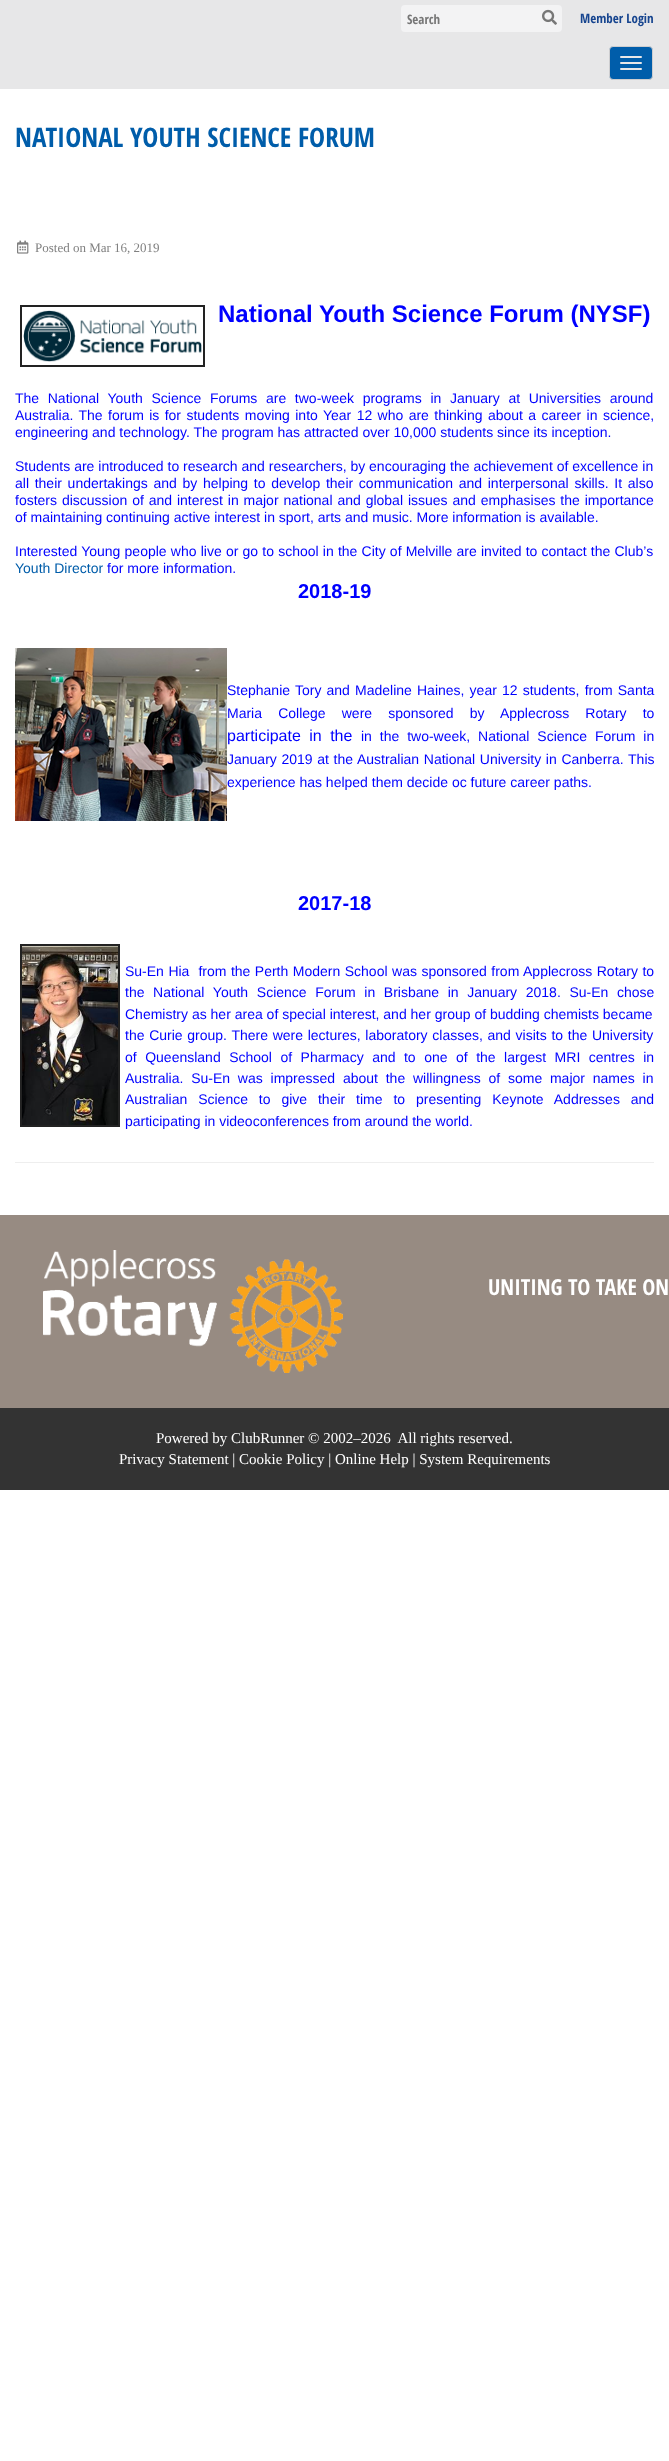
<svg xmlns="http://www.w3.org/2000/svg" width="669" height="2461">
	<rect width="100%" height="100%" fill="#FFFFFF" />
	<rect x="0" y="0" width="669" height="89" fill="#E7E7E8" />
	<rect x="401" y="5" width="161" height="27" rx="4" fill="#F3F3F4" />
	<text x="407" y="24" font-family="Open Sans Condensed" font-size="13" font-weight="700" fill="#777777">Search</text>
	<image x="542" y="9" width="15" height="16" href="assets/img1.png" />
	<text x="580" y="23" font-family="Open Sans Condensed" font-size="13" font-weight="700" fill="#17458F">Member Login</text>
	<rect x="609.5" y="46.5" width="43" height="33" rx="3.5" fill="#005DAA" stroke="#CDCDCF" />
	<rect x="620" y="56" width="22" height="2" rx="1" fill="#E7E7E8" />
	<rect x="620" y="62" width="22" height="2" rx="1" fill="#E7E7E8" />
	<rect x="620" y="68" width="22" height="2" rx="1" fill="#E7E7E8" />
	<text x="15" y="147" font-family="Open Sans Condensed" font-size="27" font-weight="700" fill="#005DAA">NATIONAL YOUTH SCIENCE FORUM</text>
	<image x="17" y="240" width="12" height="14" href="assets/img2.png" />
	<text x="35" y="252" font-family="Liberation Serif" font-size="13" fill="#808080">Posted on Mar 16, 2019</text>
	<rect x="21" y="306" width="183" height="60" fill="none" stroke="#222222" stroke-width="2" />
	<image x="23" y="310" width="179" height="52" href="assets/img3.png" />
	<text x="218" y="322" font-family="Liberation Sans" font-size="24" font-weight="700" fill="#0000FF">National Youth Science Forum (NYSF)</text>
	<g font-family="Liberation Sans" font-size="14" fill="#0000FF">
		<text x="15" y="403" word-spacing="4.75">The National Youth Science Forums are two-week programs in January at Universities around</text>
		<text x="15" y="420" word-spacing="1.5">Australia. The forum is for students moving into Year 12 who are thinking about a career in science,</text>
		<text x="15" y="437">engineering and technology. The program has attracted over 10,000 students since its inception.</text>
		<text x="15" y="471">Students are introduced to research and researchers, by encouraging the achievement of excellence in</text>
		<text x="15" y="488" word-spacing="1.8">all their undertakings and by helping to develop their communication and interpersonal skills. It also</text>
		<text x="15" y="505" word-spacing="1">fosters discussion of and interest in major national and global issues and emphasises the importance</text>
		<text x="15" y="522">of maintaining continuing active interest in sport, arts and music. More information is available.</text>
		<text x="15" y="556" word-spacing="0.3">Interested Young people who live or go to school in the City of Melville are invited to contact the Club’s</text>
	</g>
	<text x="15" y="573" font-family="Liberation Sans" font-size="14" fill="#005DAA">Youth Director</text>
	<text x="107" y="573" font-family="Liberation Sans" font-size="14" fill="#0000FF">for more information.</text>
	<text x="298" y="598" font-family="Liberation Sans" font-size="20" font-weight="700" fill="#0000FF">2018-19</text>
	<image x="15" y="648" width="212" height="173" href="assets/img4.png" />
	<g font-family="Liberation Sans" font-size="14" fill="#0000FF">
		<text x="227" y="695" word-spacing="1.25">Stephanie Tory and Madeline Haines, year 12 students, from Santa</text>
		<text x="227" y="718" word-spacing="12.25">Maria College were sponsored by Applecross Rotary to</text>
	</g>
	<text x="227" y="741" word-spacing="4" font-family="Liberation Sans" font-size="16" fill="#0000FF">participate in the</text>
	<g font-family="Liberation Sans" font-size="14" fill="#0000FF">
		<text x="361" y="741" word-spacing="4">in the two-week, National Science Forum in</text>
		<text x="227" y="764" word-spacing="0.75">January 2019 at the Australian National University in Canberra. This</text>
		<text x="227" y="787">experience has helped them decide oc future career paths.</text>
	</g>
	<text x="298" y="910" font-family="Liberation Sans" font-size="20" font-weight="700" fill="#0000FF">2017-18</text>
	<rect x="21" y="945" width="98" height="181" fill="none" stroke="#222222" stroke-width="2" />
	<image x="22" y="946" width="96" height="179" href="assets/img5.png" />
	<g font-family="Liberation Sans" font-size="14" fill="#0000FF">
		<text x="125" y="976" word-spacing="0.6" xml:space="preserve">Su-En Hia  from the Perth Modern School was sponsored from Applecross Rotary to</text>
		<text x="125" y="997" word-spacing="4.75">the National Youth Science Forum in Brisbane in January 2018. Su-En chose</text>
		<text x="125" y="1019">Chemistry as her area of special interest, and her group of budding chemists became</text>
		<text x="125" y="1040" word-spacing="0.8">the Curie group. There were lectures, laboratory classes, and visits to the University</text>
		<text x="125" y="1062" word-spacing="4.6">of Queensland School of Pharmacy and to one of the largest MRI centres in</text>
		<text x="125" y="1083" word-spacing="3.9">Australia. Su-En was impressed about the willingness of some major names in</text>
		<text x="125" y="1104" word-spacing="7">Australian Science to give their time to presenting Keynote Addresses and</text>
		<text x="125" y="1126">participating in videoconferences from around the world.</text>
	</g>
	<rect x="15" y="1162" width="639" height="1" fill="#EEEEEE" />
	<rect x="0" y="1408" width="669" height="82" fill="#333333" />
	<rect x="0" y="1215" width="669" height="193" fill="#978B82" />
	<image x="43" y="1250" width="300" height="123" href="assets/img6.png" />
	<text x="488" y="1295" font-family="Open Sans Condensed" font-size="22" font-weight="700" fill="#FFFFFF">UNITING TO TAKE ON</text>
	<g font-family="Liberation Serif" font-size="15" fill="#FFFFFF">
		<text x="156" y="1443" xml:space="preserve">Powered by ClubRunner © 2002–2026  All rights reserved.</text>
		<text x="119" y="1464">Privacy Statement | Cookie Policy | Online Help | System Requirements</text>
	</g>
</svg>
